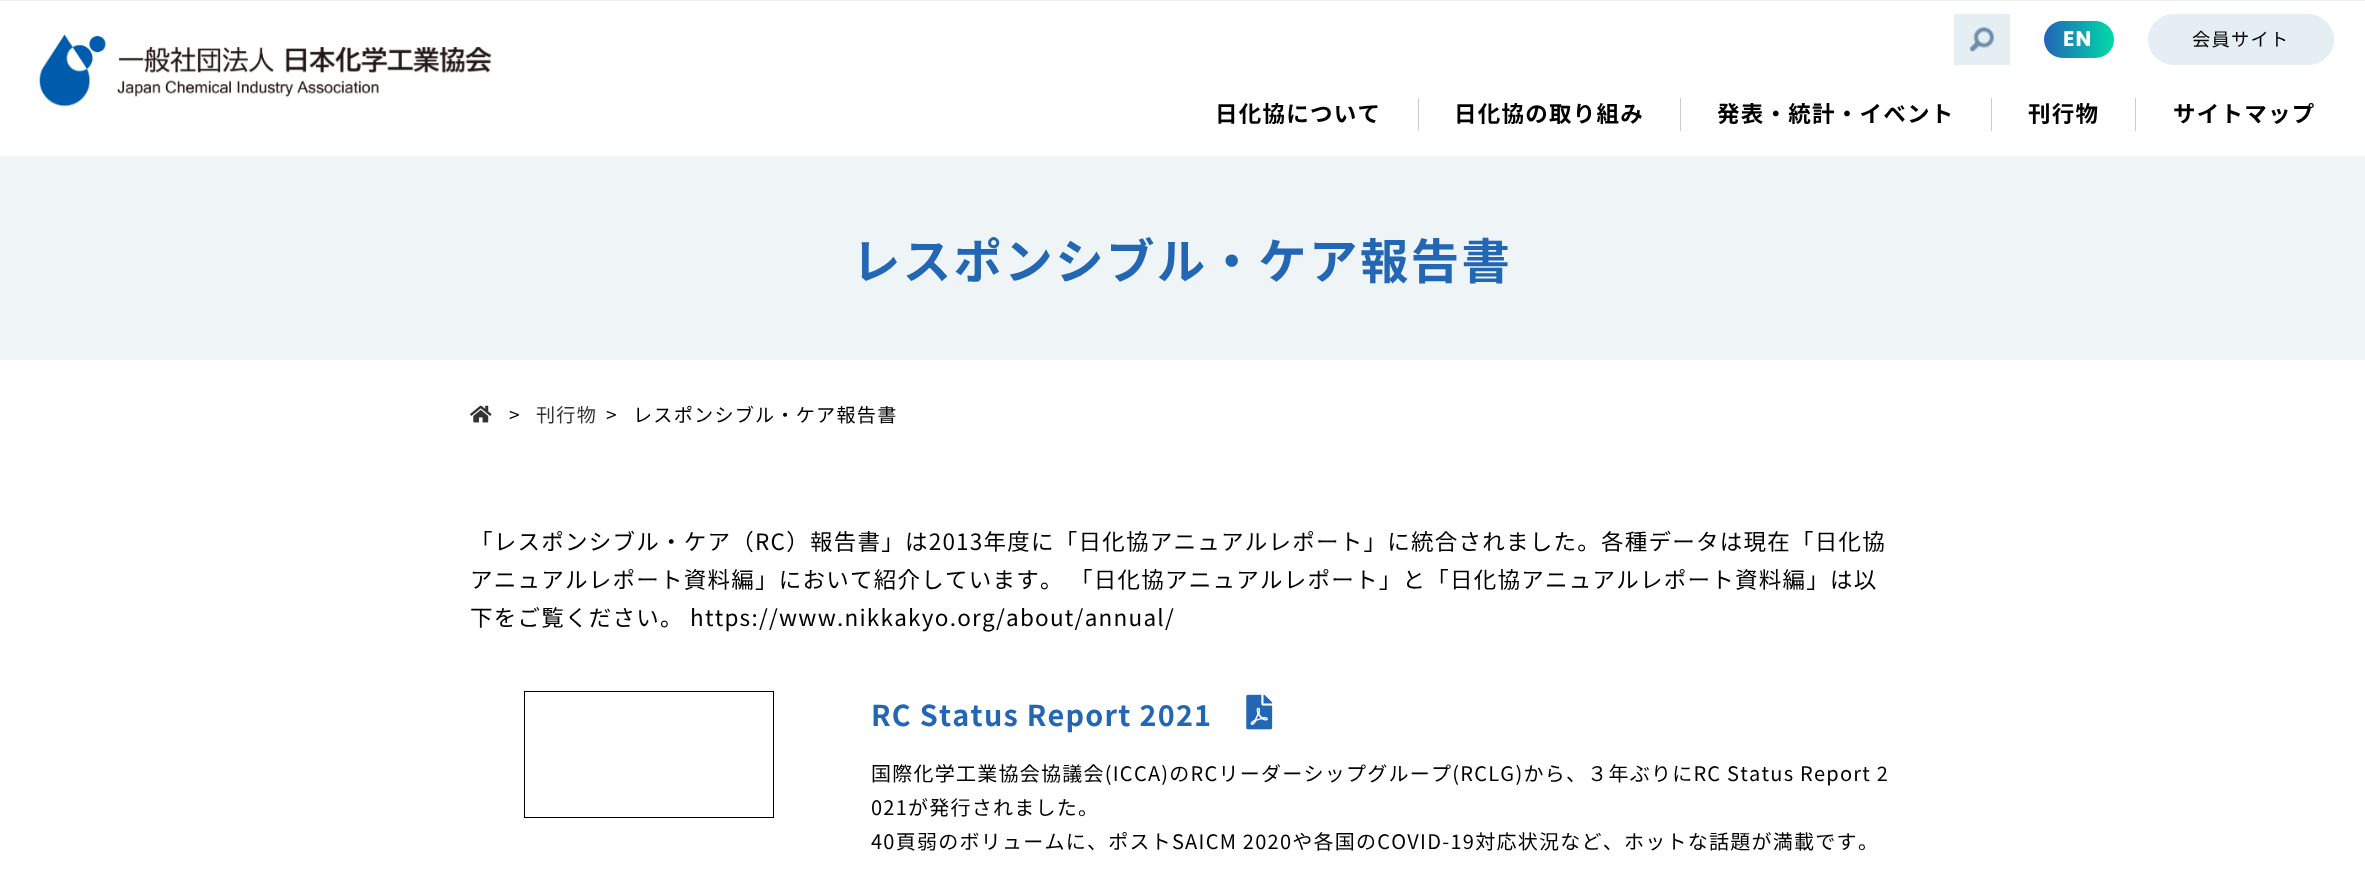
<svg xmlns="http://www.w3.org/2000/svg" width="2365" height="879">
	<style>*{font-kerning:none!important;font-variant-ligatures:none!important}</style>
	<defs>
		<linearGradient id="g1" gradientUnits="userSpaceOnUse" x1="2044" y1="39" x2="2114" y2="39"><stop offset="0" stop-color="#2264B8" /><stop offset="1" stop-color="#00DBA7" /></linearGradient>
	</defs>
	<rect width="100%" height="100%" fill="#FFFFFF" />
	<rect x="0" y="0" width="2365" height="1" fill="#EEEEEE" />
	<image x="39" y="34" width="453" height="73" href="assets/img1.png" />
	<rect x="1954" y="14" width="56" height="51" fill="#E4EEF3" />
	<image x="1969" y="27" width="25" height="25" href="assets/img2.png" />
	<rect x="2044" y="21" width="70" height="37" rx="18.5" fill="url(#g1)" />
	<text x="2063" y="46" font-family="Poppins" font-size="21" font-weight="700" letter-spacing="1.25" fill="#FFFFFF">EN</text>
	<rect x="2148" y="14" width="186" height="51" rx="25.5" fill="#E4EEF3" />
	<text x="2192" y="46" font-family="Noto Sans JP" font-size="18.25" letter-spacing="1.25" fill="#000000">会員サイト</text>
	<rect x="1418" y="98" width="1" height="33" fill="#CCCCCC" />
	<text x="1215" y="122" font-family="Noto Sans JP" font-size="22.5" font-weight="700" letter-spacing="1.25" fill="#000000">日化協について</text>
	<rect x="1680" y="98" width="1" height="33" fill="#CCCCCC" />
	<text x="1454" y="122" font-family="Noto Sans JP" font-size="22.5" font-weight="700" letter-spacing="1.25" fill="#000000">日化協の取り組み</text>
	<rect x="1991" y="98" width="1" height="33" fill="#CCCCCC" />
	<text x="1717" y="122" font-family="Noto Sans JP" font-size="22.5" font-weight="700" letter-spacing="1.25" fill="#000000">発表・統計・イベント</text>
	<rect x="2135" y="98" width="1" height="33" fill="#CCCCCC" />
	<g font-family="Noto Sans JP" font-size="22.5" font-weight="700" letter-spacing="1.25" fill="#000000">
		<text x="2028" y="122">刊行物</text>
		<text x="2173" y="122">サイトマップ</text>
	</g>
	<rect x="0" y="156" width="2365" height="204" fill="#EFF5F6" />
	<text x="852" y="279" font-family="Noto Sans JP" font-size="48.4" font-weight="700" letter-spacing="2.4" fill="#2266B4">レスポンシブル・ケア報告書</text>
	<image x="470" y="405" width="22" height="18" href="assets/img3.png" />
	<text x="509" y="422" font-family="Noto Sans JP" font-size="19.1" letter-spacing="1.25" fill="#000000">&gt;</text>
	<text x="536" y="422" font-family="Noto Sans JP" font-size="19.1" letter-spacing="1.25" fill="#333333">刊行物</text>
	<g font-family="Noto Sans JP" font-size="19.1" letter-spacing="1.25" fill="#000000">
		<text x="606" y="422">&gt;</text>
		<text x="633" y="422">レスポンシブル・ケア報告書</text>
	</g>
	<g font-family="Noto Sans JP" font-size="22.5" letter-spacing="1.25" fill="#000000">
		<text x="470" y="550">「レスポンシブル・ケア（RC）報告書」は2013年度に「日化協アニュアルレポート」に統合されました。各種データは現在「日化協</text>
		<text x="470" y="588">アニュアルレポート資料編」において紹介しています</text>
		<text x="1040" y="588">。 「日化協アニュアルレポート」と「日化協アニュアルレポート資料編」は以</text>
		<text x="470" y="626">下をご覧ください。 https://www.nikkakyo.org/about/annual/</text>
	</g>
	<rect x="524.5" y="691.5" width="249" height="126" fill="none" stroke="#000000" />
	<text x="871" y="726" font-family="Noto Sans JP" font-size="28.75" font-weight="700" letter-spacing="1.25" fill="#2266B4">RC Status Report 2021</text>
	<image x="1246" y="694" width="27" height="36" href="assets/img4.png" />
	<g font-family="Noto Sans JP" font-size="20" letter-spacing="1.25" fill="#000000">
		<text x="871" y="781">国際化学工業協会協議会(ICCA)のRCリーダーシップグループ(RCLG)から、３年ぶりにRC Status</text>
		<text x="1800" y="781">Report 2</text>
		<text x="871" y="815">021が発行されました。</text>
		<text x="871" y="849">40頁弱のボリュームに、ポストSAICM 2020や各国のCOVID-19対応状況など、ホットな話題が満載です</text>
		<text x="1858" y="849">。</text>
	</g>
</svg>
